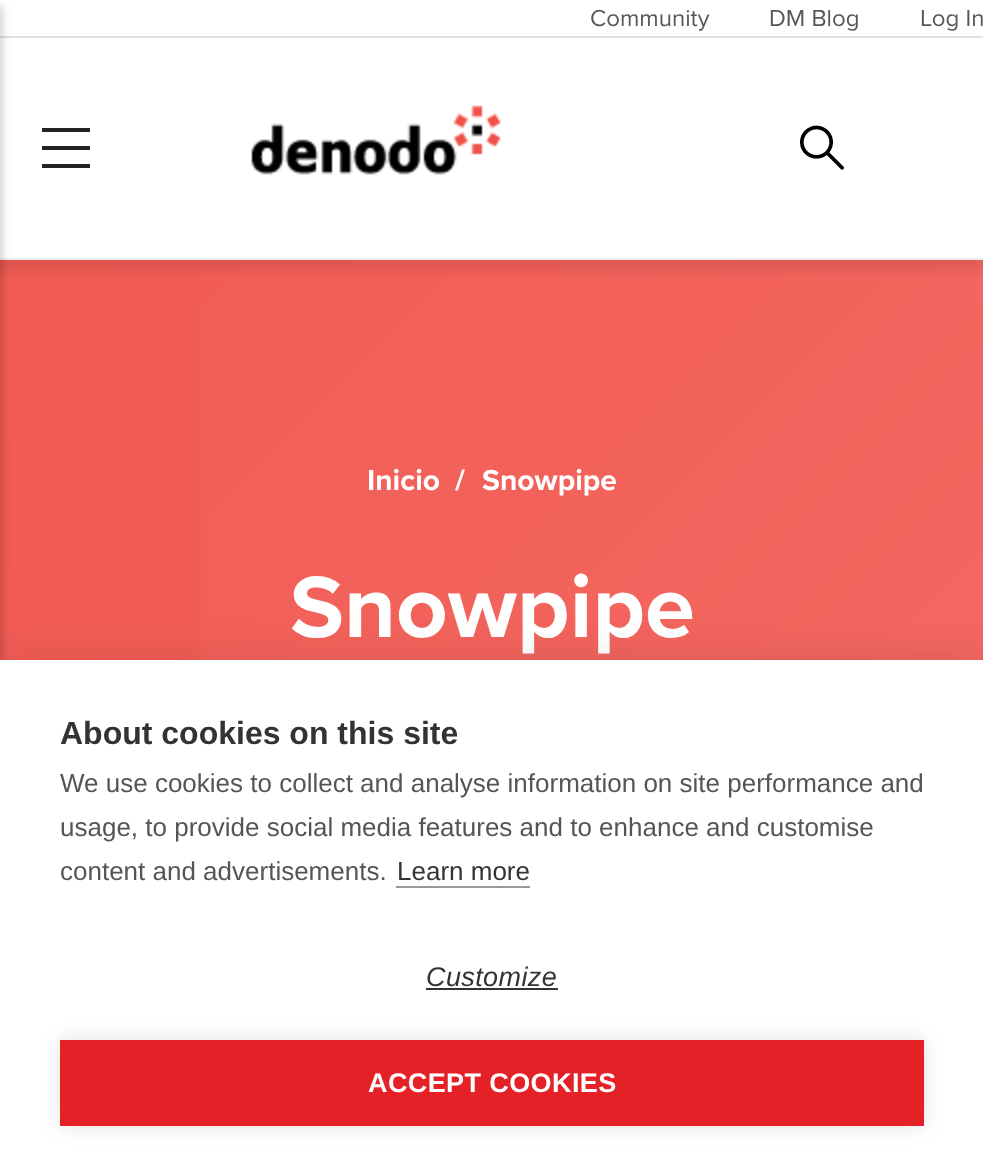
<svg xmlns="http://www.w3.org/2000/svg" width="983" height="1175">
	<defs>
		<clipPath id="clip1"><rect x="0" y="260" width="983" height="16" /></clipPath>
	</defs>
	<rect width="100%" height="100%" fill="#FFFFFF" />
	<image x="0" y="260" width="201" height="400" href="assets/img3.png" />
	<image x="201" y="260" width="782" height="400" href="assets/img4.png" />
	<g clip-path="url(#clip1)">
		<rect x="-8" y="-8" width="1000" height="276" fill="#000000" fill-opacity="0.1" filter="blur(10px)" />
	</g>
	<rect x="0" y="258" width="983" height="2" fill="#EBEBEB" />
	<rect x="0" y="36" width="983" height="2" fill="#DEE2E6" />
	<rect x="-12" y="6" width="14" height="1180" fill="#000000" fill-opacity="0.2" filter="blur(4px)" />
	<rect x="42" y="128" width="48" height="4" fill="#222222" />
	<rect x="42" y="146" width="48" height="4" fill="#222222" />
	<rect x="42" y="164" width="48" height="4" fill="#222222" />
	<image x="251" y="105" width="250" height="70" href="assets/img1.png" />
	<image x="800" y="125" width="44" height="45" href="assets/img2.png" />
	<g font-family="Proxima Nova" font-size="24" fill="#56585B">
		<text x="590" y="26">Community</text>
		<text x="769" y="26">DM Blog</text>
		<text x="920" y="26">Log In</text>
	</g>
	<g font-family="Proxima Nova" font-size="30" font-weight="700" fill="#FFFFFF">
		<text x="367" y="490">Inicio</text>
		<text x="455" y="490">/</text>
		<text x="482" y="490">Snowpipe</text>
	</g>
	<text x="290" y="637" font-family="Proxima Nova" font-size="90" font-weight="700" fill="#FFFFFF">Snowpipe</text>
	<rect x="0" y="660" width="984" height="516" fill="#000000" fill-opacity="0.1" filter="blur(20px)" />
	<rect x="0" y="660" width="983" height="515" fill="#FFFFFF" />
	<text x="60" y="744" font-family="Liberation Sans" font-size="32" font-weight="700" fill="#333333">About cookies on this site</text>
	<g font-family="Liberation Sans" font-size="26" fill="#555555">
		<text x="60" y="792">We use cookies to collect and analyse information on site performance and</text>
		<text x="60" y="836">usage, to provide social media features and to enhance and customise</text>
		<text x="60" y="880">content and advertisements.</text>
	</g>
	<text x="397" y="880" font-family="Liberation Sans" font-size="26" fill="#333333">Learn more</text>
	<rect x="396" y="886" width="134" height="2" fill="#999999" />
	<text x="426" y="986" font-family="Liberation Sans" font-size="27" font-style="italic" letter-spacing="0.4" fill="#333333">Customize</text>
	<rect x="426" y="988" width="132" height="2" fill="#333333" />
	<rect x="60" y="1040" width="864" height="86" fill="#000000" fill-opacity="0.12" filter="blur(10px)" />
	<rect x="60" y="1040" width="864" height="86" fill="#E42127" />
	<text x="368" y="1092" font-family="Liberation Sans" font-size="27" font-weight="700" letter-spacing="0.4" fill="#FFFFFF">ACCEPT COOKIES</text>
</svg>
